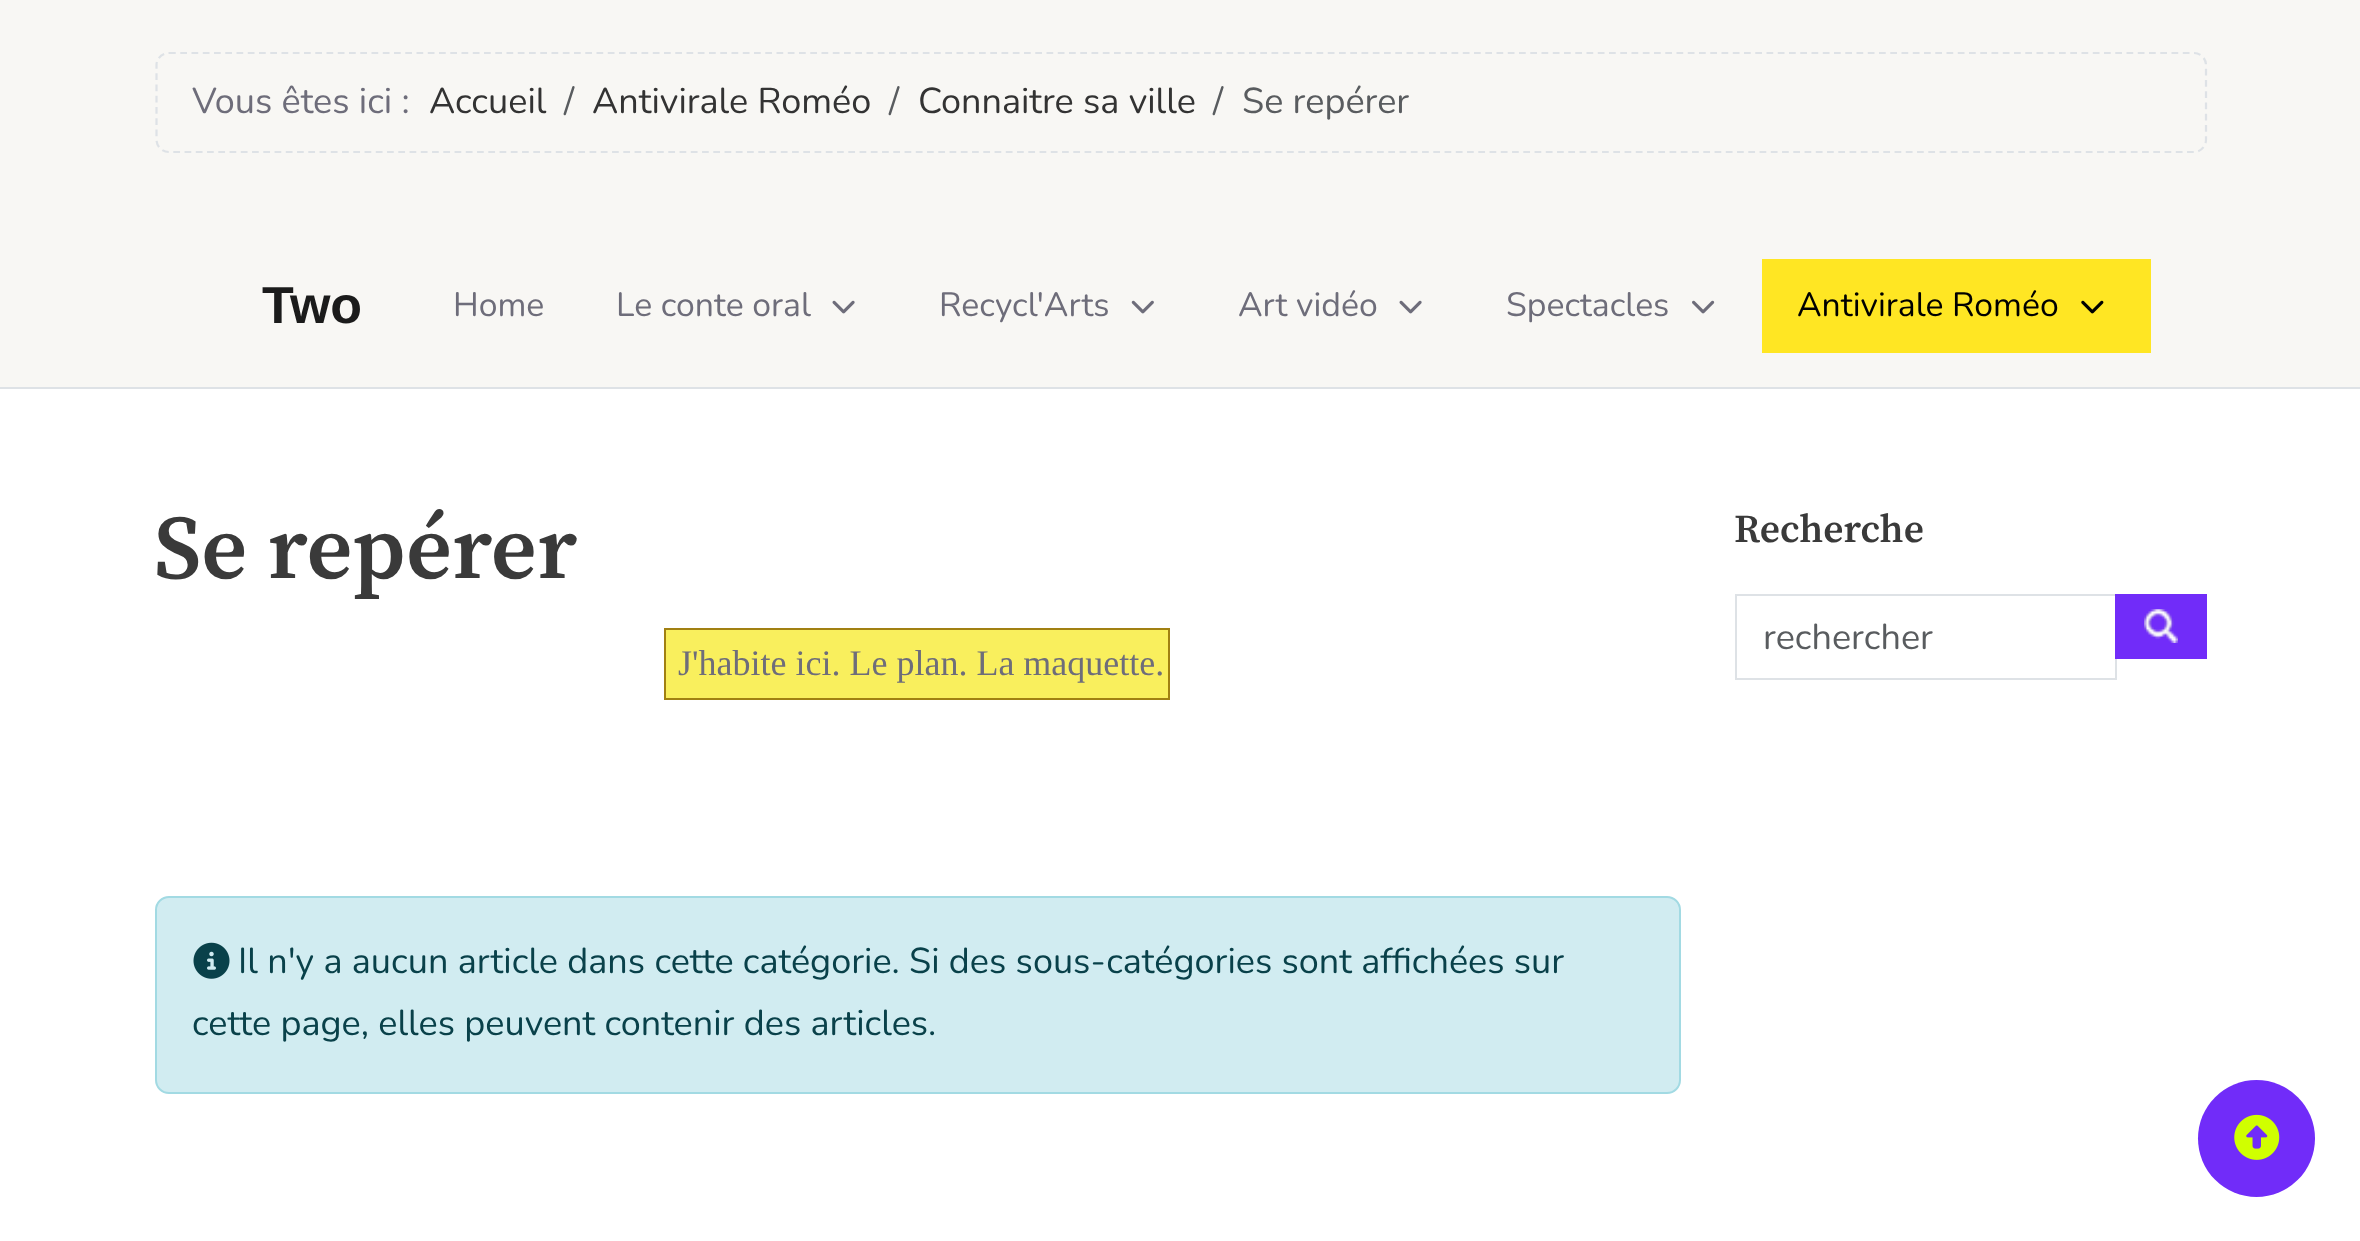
<svg xmlns="http://www.w3.org/2000/svg" width="2360" height="1241">
	<rect width="100%" height="100%" fill="#FFFFFF" />
	<rect x="0" y="0" width="2360" height="387" fill="#F8F7F4" />
	<rect x="0" y="387" width="2360" height="2" fill="#DEE2E6" />
	<path d="M169 53H2194C2200.5 53 2206 58.5 2206 65V139.5C2206 146.5 2200.5 152 2194 152H169C162 152 156.5 146.5 156.5 139.5V65C156.5 58.5 162 53 169 53Z" fill="none" stroke="#DEE2E6" stroke-width="2.2" stroke-dasharray="6.75 4.5" />
	<text x="192" y="113" font-family="Nunito" font-size="36" fill="#6E6D7A">Vous êtes ici :</text>
	<text x="429" y="113" font-family="Nunito" font-size="36" fill="#333333">Accueil</text>
	<text x="564" y="113" font-family="Nunito" font-size="36" fill="#595C5F">/</text>
	<text x="592" y="113" font-family="Nunito" font-size="36" fill="#333333">Antivirale Roméo</text>
	<text x="889" y="113" font-family="Nunito" font-size="36" fill="#595C5F">/</text>
	<text x="918" y="113" font-family="Nunito" font-size="36" fill="#333333">Connaitre sa ville</text>
	<g font-family="Nunito" font-size="36" fill="#595C5F">
		<text x="1213" y="113">/</text>
		<text x="1242" y="113">Se repérer</text>
	</g>
	<text x="262" y="323" font-family="Liberation Sans" font-size="52" font-weight="700" fill="#1B1B1B">Two</text>
	<g font-family="Nunito" font-size="33.75" fill="#6E6D7A">
		<text x="453" y="316">Home</text>
		<text x="616" y="316">Le conte oral</text>
	</g>
	<image x="832" y="300" width="23" height="14" href="assets/img1.png" />
	<text x="939" y="316" font-family="Nunito" font-size="33.75" fill="#6E6D7A">Recycl'Arts</text>
	<image x="1131" y="300" width="23" height="14" href="assets/img2.png" />
	<text x="1238" y="316" font-family="Nunito" font-size="33.75" fill="#6E6D7A">Art vidéo</text>
	<image x="1399" y="300" width="23" height="14" href="assets/img1.png" />
	<text x="1506" y="316" font-family="Nunito" font-size="33.75" fill="#6E6D7A">Spectacles</text>
	<image x="1692" y="300" width="23" height="14" href="assets/img3.png" />
	<rect x="1762" y="259" width="389" height="94" fill="#FFE623" />
	<text x="1797" y="316" font-family="Nunito" font-size="33.75" fill="#000000">Antivirale Roméo</text>
	<image x="2081" y="300" width="23" height="14" href="assets/img4.png" />
	<text x="154" y="578" font-family="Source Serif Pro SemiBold" font-size="90" font-weight="600" fill="#3A3A3A">Se repérer</text>
	<rect x="666" y="630" width="502" height="68" fill="#F9EF5D" />
	<rect x="664" y="628" width="506" height="2" fill="#A18012" />
	<rect x="1168" y="628" width="2" height="72" fill="#A18012" />
	<rect x="664" y="698" width="506" height="2" fill="#A18012" />
	<rect x="664" y="628" width="2" height="72" fill="#A18012" />
	<text x="678" y="675" font-family="Liberation Serif" font-size="36" fill="#6E6D7A">J'habite ici. Le plan. La maquette.</text>
	<rect x="156" y="897" width="1524" height="196" rx="13" fill="#D1ECF1" stroke="#A2DAE3" stroke-width="2" />
	<image x="193" y="942" width="37" height="37" href="assets/img5.png" />
	<g font-family="Nunito" font-size="36" fill="#09414A">
		<text x="238" y="973">Il n'y a aucun article dans cette catégorie. Si des sous-catégories sont affichées sur</text>
		<text x="192" y="1035">cette page, elles peuvent contenir des articles.</text>
	</g>
	<text x="1734" y="542" font-family="Source Serif Pro SemiBold" font-size="39.5" font-weight="600" fill="#3A3A3A">Recherche</text>
	<rect x="1736" y="595" width="380" height="84" fill="none" stroke="#DEE2E6" stroke-width="2" />
	<text x="1763" y="649" font-family="Nunito" font-size="36" fill="#595C5F">rechercher</text>
	<rect x="2115" y="594" width="92" height="65" fill="#712CF9" />
	<image x="2144" y="609" width="34" height="34" href="assets/img6.png" />
	<circle cx="2256.5" cy="1138.5" r="58.5" fill="#712CF9" />
	<image x="2234" y="1114" width="46" height="46" href="assets/img7.png" />
</svg>
